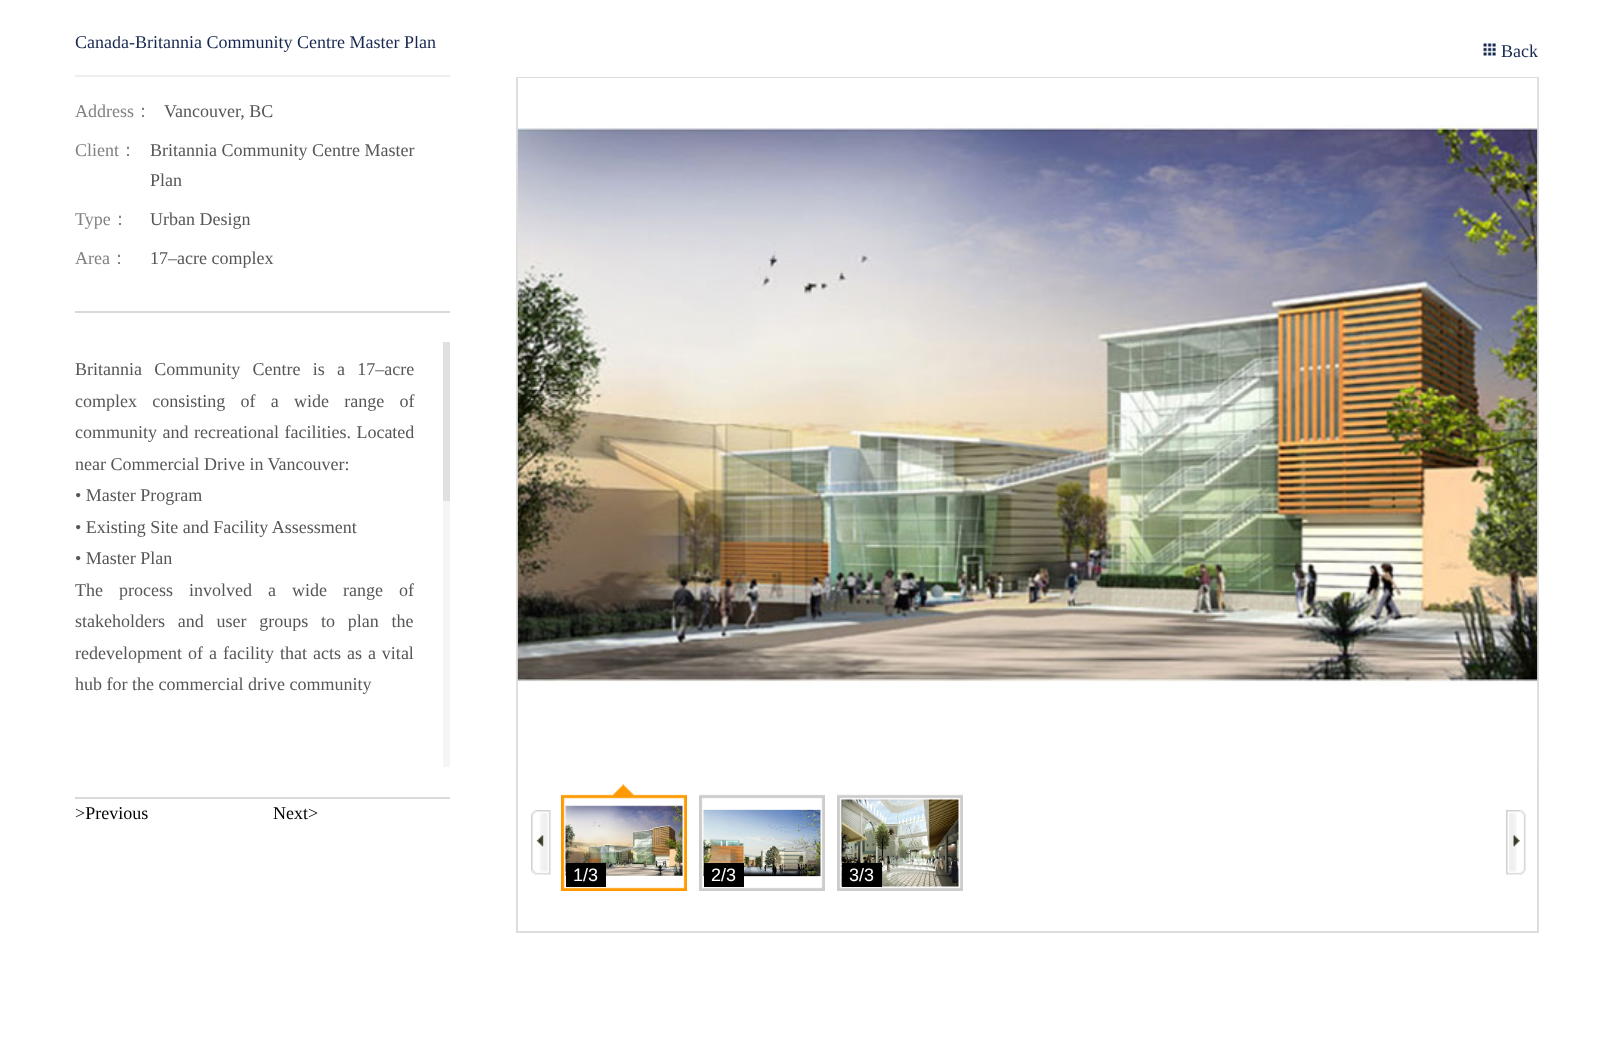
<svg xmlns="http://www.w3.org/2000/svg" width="1619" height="1058">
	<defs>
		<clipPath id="clip1"><rect x="75" y="36" width="1470" height="1020" /></clipPath>
	</defs>
	<rect width="100%" height="100%" fill="#FFFFFF" />
	<rect x="75" y="75" width="375" height="2" fill="#EEEEEE" />
	<g clip-path="url(#clip1)">
		<text x="75" y="48" font-family="Liberation Serif" font-size="18" fill="#162850">Canada-Britannia Community Centre Master Plan</text>
	</g>
	<text x="75" y="117" font-family="Liberation Serif" font-size="18" fill="#818181">Address</text>
	<text x="134" y="117" font-family="WenQuanYi Zen Hei" font-size="18" font-weight="500" fill="#818181">：</text>
	<text x="164" y="117" font-family="Liberation Serif" font-size="18" fill="#565656">Vancouver, BC</text>
	<text x="75" y="156" font-family="Liberation Serif" font-size="18" fill="#818181">Client</text>
	<text x="119" y="156" font-family="WenQuanYi Zen Hei" font-size="18" font-weight="500" fill="#818181">：</text>
	<g font-family="Liberation Serif" font-size="18" fill="#565656">
		<text x="150" y="156">Britannia Community Centre Master</text>
		<text x="150" y="186">Plan</text>
	</g>
	<text x="75" y="225" font-family="Liberation Serif" font-size="18" fill="#818181">Type</text>
	<text x="111" y="225" font-family="WenQuanYi Zen Hei" font-size="18" font-weight="500" fill="#818181">：</text>
	<text x="150" y="225" font-family="Liberation Serif" font-size="18" fill="#565656">Urban Design</text>
	<text x="75" y="264" font-family="Liberation Serif" font-size="18" fill="#818181">Area</text>
	<text x="110" y="264" font-family="WenQuanYi Zen Hei" font-size="18" font-weight="500" fill="#818181">：</text>
	<text x="150" y="264" font-family="Liberation Serif" font-size="18" fill="#565656">17–acre complex</text>
	<rect x="75" y="311" width="375" height="2" fill="#D9D9D9" />
	<rect x="75" y="797" width="375" height="2" fill="#D9D9D9" />
	<g font-family="Liberation Serif" font-size="18" fill="#565656">
		<text x="75" y="375" word-spacing="7.75">Britannia Community Centre is a 17–acre</text>
		<text x="75" y="407" word-spacing="10.75">complex consisting of a wide range of</text>
		<text x="75" y="438" word-spacing="1">community and recreational facilities. Located</text>
		<text x="75" y="470">near Commercial Drive in Vancouver:</text>
		<text x="75" y="501">• Master Program</text>
		<text x="75" y="533">• Existing Site and Facility Assessment</text>
		<text x="75" y="564">• Master Plan</text>
		<text x="75" y="596" word-spacing="11.5">The process involved a wide range of</text>
		<text x="75" y="627" word-spacing="8.25">stakeholders and user groups to plan the</text>
		<text x="75" y="659" word-spacing="1.5">redevelopment of a facility that acts as a vital</text>
		<text x="75" y="690">hub for the commercial drive community</text>
	</g>
	<rect x="443" y="501" width="7" height="266" fill="#F5F5F5" />
	<rect x="443" y="342" width="7" height="159" fill="#E0E0E0" />
	<g font-family="Liberation Serif" font-size="18" fill="#000000">
		<text x="75" y="819">&gt;Previous</text>
		<text x="273" y="819">Next&gt;</text>
	</g>
	<image x="1483" y="43" width="13" height="13" href="assets/img1.png" />
	<text x="1501" y="57" font-family="Liberation Serif" font-size="18" fill="#162850">Back</text>
	<rect x="517" y="78" width="1021" height="854" fill="none" stroke="#DDDDDD" stroke-width="2" />
	<image x="517" y="78" width="1021" height="687" href="assets/img2.png" />
	<image x="531" y="810" width="20" height="65" href="assets/img3.png" />
	<image x="561" y="784" width="126" height="107" href="assets/img4.png" />
	<image x="565" y="805" width="118" height="71" href="assets/img5.png" />
	<rect x="566" y="863" width="40" height="24" fill="#000000" />
	<text x="573" y="881" font-family="Liberation Sans" font-size="18" fill="#FFFFFF">1/3</text>
	<image x="699" y="794" width="126" height="97" href="assets/img6.png" />
	<image x="703" y="809" width="118" height="68" href="assets/img7.png" />
	<rect x="704" y="863" width="40" height="24" fill="#000000" />
	<text x="711" y="881" font-family="Liberation Sans" font-size="18" fill="#FFFFFF">2/3</text>
	<image x="837" y="794" width="126" height="97" href="assets/img6.png" />
	<image x="841" y="799" width="118" height="88" href="assets/img8.png" />
	<rect x="842" y="863" width="40" height="24" fill="#000000" />
	<text x="849" y="881" font-family="Liberation Sans" font-size="18" fill="#FFFFFF">3/3</text>
	<image x="1506" y="810" width="20" height="65" href="assets/img9.png" />
</svg>
